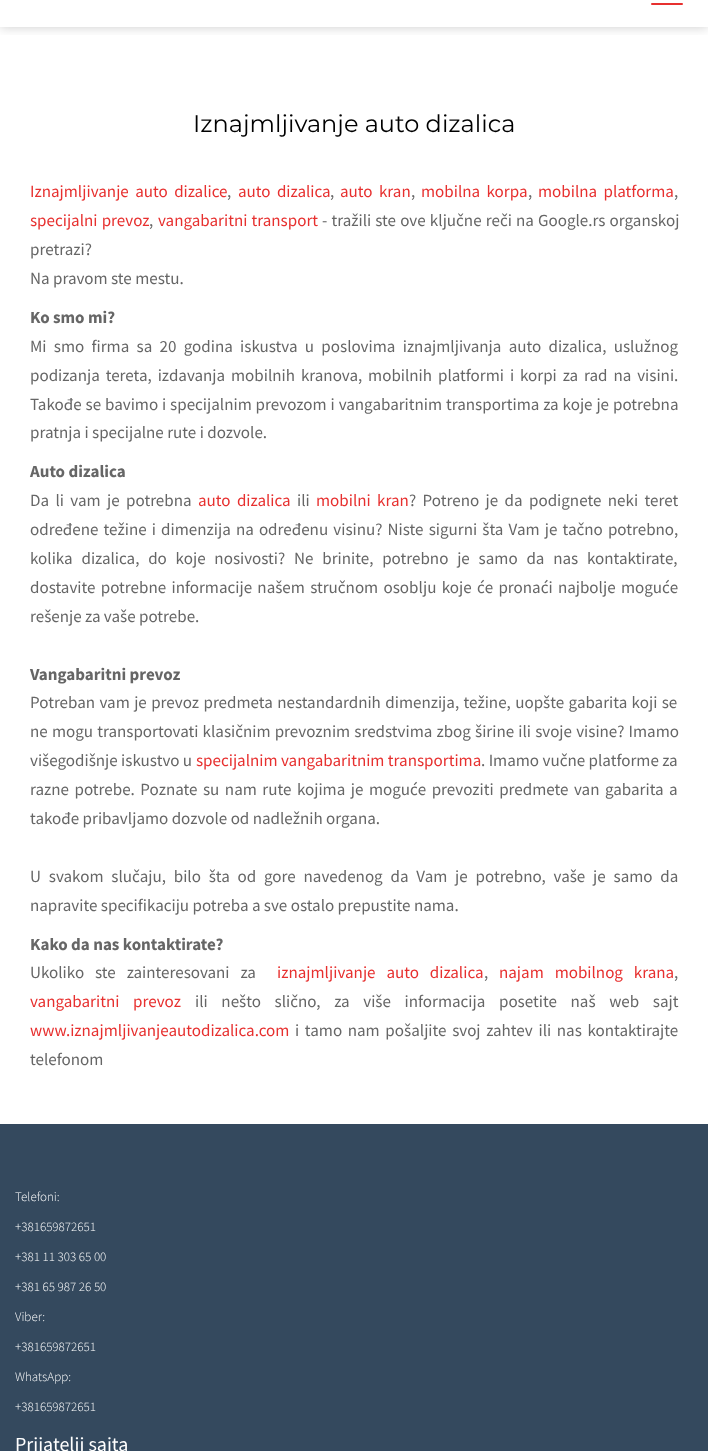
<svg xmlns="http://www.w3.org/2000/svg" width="708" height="1451">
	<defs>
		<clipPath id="clip1"><rect x="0" y="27" width="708" height="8" /></clipPath>
	</defs>
	<rect width="100%" height="100%" fill="#FFFFFF" />
	<g clip-path="url(#clip1)">
		<rect x="0" y="-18" width="708" height="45" fill="#000000" fill-opacity="0.2" filter="blur(6px)" />
	</g>
	<rect x="651" y="3" width="32" height="2" rx="1" fill="#E7302F" />
	<text x="193" y="132" font-family="Montserrat" font-size="24" fill="#000000">Iznajmljivanje auto dizalica</text>
	<text x="30" y="197" word-spacing="3" font-family="Source Sans Pro" font-size="17" fill="#E7302F">Iznajmljivanje auto dizalice</text>
	<text x="227" y="197" font-family="Source Sans Pro" font-size="17" fill="#666666">,</text>
	<text x="238" y="197" word-spacing="3" font-family="Source Sans Pro" font-size="17" fill="#E7302F">auto dizalica</text>
	<text x="330" y="197" font-family="Source Sans Pro" font-size="17" fill="#666666">,</text>
	<text x="340" y="197" word-spacing="3" font-family="Source Sans Pro" font-size="17" fill="#E7302F">auto kran</text>
	<text x="411" y="197" font-family="Source Sans Pro" font-size="17" fill="#666666">,</text>
	<text x="421" y="197" word-spacing="3" font-family="Source Sans Pro" font-size="17" fill="#E7302F">mobilna korpa</text>
	<text x="528" y="197" font-family="Source Sans Pro" font-size="17" fill="#666666">,</text>
	<text x="538" y="197" word-spacing="3" font-family="Source Sans Pro" font-size="17" fill="#E7302F">mobilna platforma</text>
	<text x="674" y="197" font-family="Source Sans Pro" font-size="17" fill="#666666">,</text>
	<text x="30" y="226" word-spacing="0.75" font-family="Source Sans Pro" font-size="17" fill="#E7302F">specijalni prevoz</text>
	<text x="149" y="226" font-family="Source Sans Pro" font-size="17" fill="#666666">,</text>
	<text x="158" y="226" word-spacing="0.75" font-family="Source Sans Pro" font-size="17" fill="#E7302F">vangabaritni transport</text>
	<g font-family="Source Sans Pro" font-size="17" fill="#666666">
		<text x="322" y="226" word-spacing="0.75">- tražili ste ove ključne reči na Google.rs organskoj</text>
		<text x="30" y="255">pretrazi?</text>
		<text x="30" y="284">Na pravom ste mestu.</text>
	</g>
	<text x="30" y="323" font-family="Source Sans Pro" font-size="17" font-weight="700" fill="#666666">Ko smo mi?</text>
	<g font-family="Source Sans Pro" font-size="17" fill="#666666">
		<text x="30" y="352" word-spacing="3.9">Mi smo firma sa 20 godina iskustva u poslovima iznajmljivanja auto dizalica, uslužnog</text>
		<text x="30" y="381" word-spacing="2.5">podizanja tereta, izdavanja mobilnih kranova, mobilnih platformi i korpi za rad na visini.</text>
		<text x="30" y="410" word-spacing="0.5">Takođe se bavimo i specijalnim prevozom i vangabaritnim transportima za koje je potrebna</text>
		<text x="30" y="438">pratnja i specijalne rute i dozvole.</text>
	</g>
	<text x="30" y="477" font-family="Source Sans Pro" font-size="17" font-weight="700" fill="#666666">Auto dizalica</text>
	<text x="30" y="506" word-spacing="3" font-family="Source Sans Pro" font-size="17" fill="#666666">Da li vam je potrebna</text>
	<text x="198" y="506" word-spacing="3" font-family="Source Sans Pro" font-size="17" fill="#E7302F">auto dizalica</text>
	<text x="297" y="506" font-family="Source Sans Pro" font-size="17" fill="#666666">ili</text>
	<text x="316" y="506" word-spacing="3" font-family="Source Sans Pro" font-size="17" fill="#E7302F">mobilni kran</text>
	<g font-family="Source Sans Pro" font-size="17" fill="#666666">
		<text x="409" y="506" word-spacing="3">? Potreno je da podignete neki teret</text>
		<text x="30" y="535" word-spacing="1.75">određene težine i dimenzija na određenu visinu? Niste sigurni šta Vam je tačno potrebno,</text>
		<text x="30" y="564" word-spacing="5.4">kolika dizalica, do koje nosivosti? Ne brinite, potrebno je samo da nas kontaktirate,</text>
		<text x="30" y="593" word-spacing="1.9">dostavite potrebne informacije našem stručnom osoblju koje će pronaći najbolje moguće</text>
		<text x="30" y="622">rešenje za vaše potrebe.</text>
	</g>
	<text x="30" y="680" font-family="Source Sans Pro" font-size="17" font-weight="700" fill="#666666">Vangabaritni prevoz</text>
	<g font-family="Source Sans Pro" font-size="17" fill="#666666">
		<text x="30" y="708" word-spacing="1">Potreban vam je prevoz predmeta nestandardnih dimenzija, težine, uopšte gabarita koji se</text>
		<text x="30" y="737" word-spacing="0.75">ne mogu transportovati klasičnim prevoznim sredstvima zbog širine ili svoje visine? Imamo</text>
		<text x="30" y="766">višegodišnje iskustvo u</text>
	</g>
	<text x="196" y="766" font-family="Source Sans Pro" font-size="17" fill="#E7302F">specijalnim vangabaritnim transportima</text>
	<g font-family="Source Sans Pro" font-size="17" fill="#666666">
		<text x="481" y="766">. Imamo vučne platforme za</text>
		<text x="30" y="795" word-spacing="2.1">razne potrebe. Poznate su nam rute kojima je moguće prevoziti predmete van gabarita a</text>
		<text x="30" y="824">takođe pribavljamo dozvole od nadležnih organa.</text>
		<text x="30" y="882" word-spacing="4.4">U svakom slučaju, bilo šta od gore navedenog da Vam je potrebno, vaše je samo da</text>
		<text x="30" y="911">napravite specifikaciju potreba a sve ostalo prepustite nama.</text>
	</g>
	<text x="30" y="950" font-family="Source Sans Pro" font-size="17" font-weight="700" fill="#666666">Kako da nas kontaktirate?</text>
	<text x="30" y="978" word-spacing="7.5" font-family="Source Sans Pro" font-size="17" fill="#666666">Ukoliko ste zainteresovani za</text>
	<text x="277" y="978" word-spacing="7.5" font-family="Source Sans Pro" font-size="17" fill="#E7302F">iznajmljivanje auto dizalica</text>
	<text x="484" y="978" font-family="Source Sans Pro" font-size="17" fill="#666666">,</text>
	<text x="499" y="978" word-spacing="7.5" font-family="Source Sans Pro" font-size="17" fill="#E7302F">najam mobilnog krana</text>
	<text x="674" y="978" font-family="Source Sans Pro" font-size="17" fill="#666666">,</text>
	<text x="30" y="1007" word-spacing="10.25" font-family="Source Sans Pro" font-size="17" fill="#E7302F">vangabaritni prevoz</text>
	<text x="195" y="1007" word-spacing="10.25" font-family="Source Sans Pro" font-size="17" fill="#666666">ili nešto slično, za više informacija posetite naš web sajt</text>
	<text x="30" y="1036" font-family="Source Sans Pro" font-size="17" fill="#E7302F">www.iznajmljivanjeautodizalica.com</text>
	<g font-family="Source Sans Pro" font-size="17" fill="#666666">
		<text x="295" y="1036" word-spacing="2.25">i tamo nam pošaljite svoj zahtev ili nas kontaktirajte</text>
		<text x="30" y="1065">telefonom</text>
	</g>
	<rect x="0" y="1124" width="708" height="327" fill="#34495E" />
	<g font-family="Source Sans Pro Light" font-size="13" font-weight="300" fill="#FFFFFF">
		<text x="15" y="1201">Telefoni:</text>
		<text x="15" y="1231">+381659872651</text>
		<text x="15" y="1261">+381 11 303 65 00</text>
		<text x="15" y="1291">+381 65 987 26 50</text>
		<text x="15" y="1321">Viber:</text>
		<text x="15" y="1351">+381659872651</text>
		<text x="15" y="1381">WhatsApp:</text>
		<text x="15" y="1411">+381659872651</text>
	</g>
	<text x="15" y="1451" font-family="Source Sans Pro" font-size="20" fill="#FFFFFF">Prijatelji sajta</text>
</svg>
